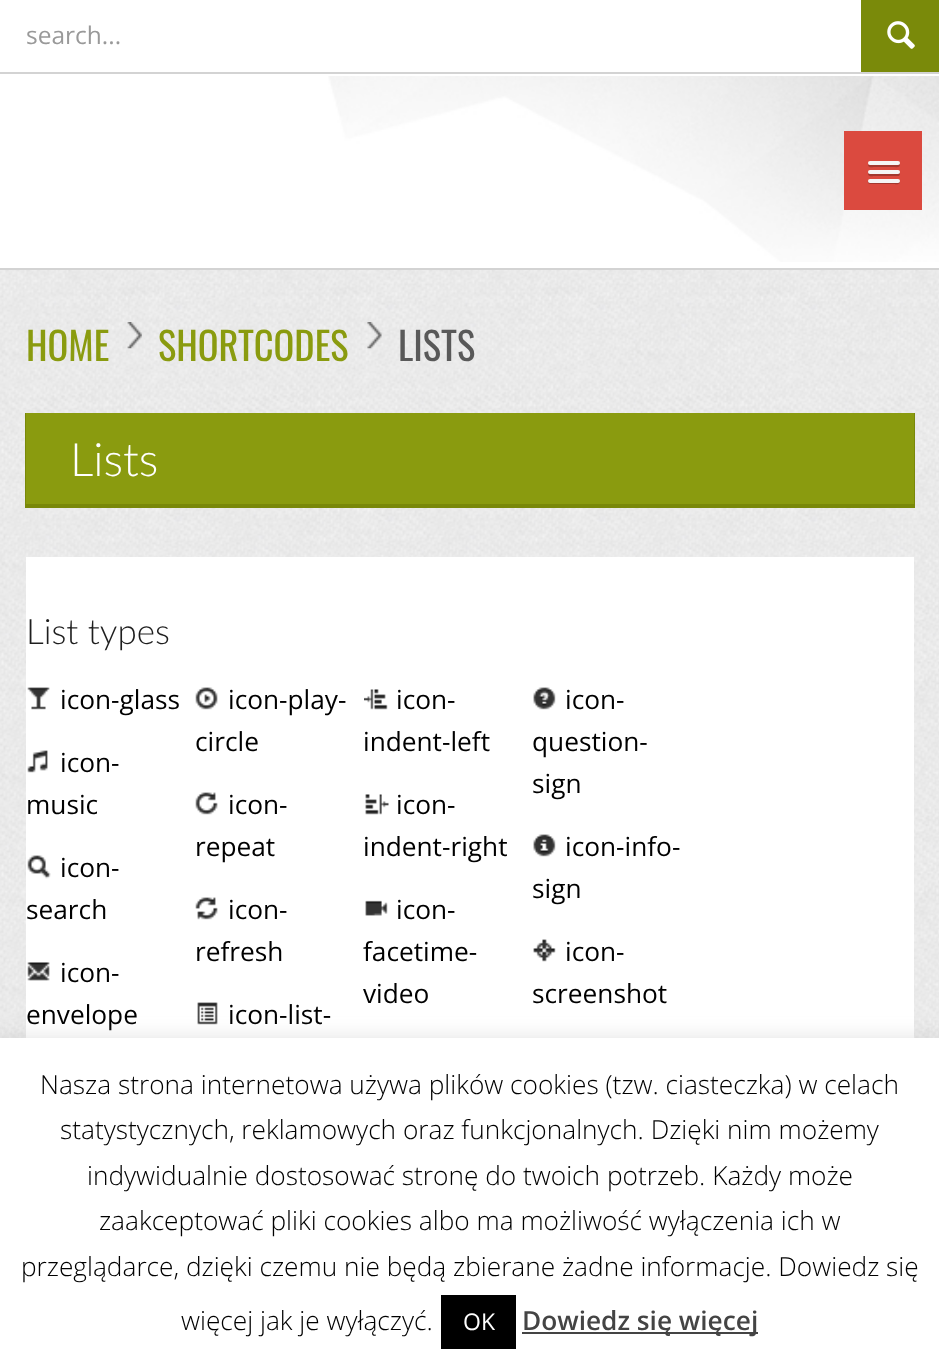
<svg xmlns="http://www.w3.org/2000/svg" width="939" height="1369">
	<rect width="100%" height="100%" fill="#FFFFFF" />
	<image x="0" y="270" width="939" height="768" href="assets/img1.png" />
	<rect x="0" y="72" width="939" height="2" fill="#D3D3D3" />
	<text x="26" y="44" font-family="Open Sans" font-size="24.5" fill="#999999">search...</text>
	<rect x="861" y="0" width="78" height="72" fill="#7A8A0A" />
	<image x="887" y="21" width="28" height="28" href="assets/img2.png" />
	<image x="328" y="76" width="611" height="186" href="assets/img3.png" />
	<rect x="0" y="268" width="939" height="2" fill="#D3D3D3" />
	<rect x="844" y="131" width="78" height="79" fill="#DB4A3F" />
	<path d="M868.5 164L868 165.5C868.5 168 873.5 167 874.5 167H893.5C895 167 900 168 900 165L899.5 163.5C899 164 898.5 164.5 898 164.5H869.5Z" fill="#A4382F" />
	<rect x="868" y="161" width="32" height="4" rx="2" fill="#F5F5F5" />
	<path d="M868.5 172.5C868 173 868 174 868 174.5C868.5 177 873.5 176 874.5 176H898C900 176 900.5 173.5 899 172.5L898 173H869.5Z" fill="#A4382F" />
	<rect x="868" y="170" width="32" height="4" rx="2" fill="#F5F5F5" />
	<path d="M868 181C866.5 185 874 184 874.5 184H893.5C894.5 184 899.5 185 900 182.5C900 182 900 181 899.5 180.5C899.5 181.5 898.5 182 898 182H870C869 182 868.5 181.5 868 181Z" fill="#A4382F" />
	<rect x="868" y="179" width="32" height="4" rx="2" fill="#F5F5F5" />
	<text x="26" y="361" font-family="Oswald" font-size="38.5" fill="#8A9B0F">HOME</text>
	<image x="127" y="322" width="15" height="27" href="assets/img4.png" />
	<text x="158" y="361" font-family="Oswald" font-size="38.5" fill="#8A9B0F">SHORTCODES</text>
	<image x="367" y="322" width="15" height="27" href="assets/img5.png" />
	<text x="398" y="361" font-family="Oswald" font-size="38.5" fill="#595959">LISTS</text>
	<path d="M25 413V508H915V413H914V504H26V413Z" fill="#798809" />
	<rect x="26" y="413" width="888" height="91" fill="#8A9B0F" />
	<text x="70" y="476" font-family="Lato" font-size="46" font-weight="300" fill="#FFFFFF">Lists</text>
	<rect x="26" y="557" width="888" height="481" fill="#FFFFFF" />
	<text x="26" y="644" font-family="Lato" font-size="35" font-weight="300" fill="#1E1E1E">List types</text>
	<image x="27" y="687" width="23" height="23" href="assets/img6.png" />
	<text x="60" y="709" font-family="Open Sans" font-size="26.25" fill="#000000">icon-glass</text>
	<image x="27" y="750" width="21" height="23" href="assets/img7.png" />
	<g font-family="Open Sans" font-size="26.25" fill="#000000">
		<text x="60" y="772">icon-</text>
		<text x="26" y="814">music</text>
	</g>
	<image x="27" y="855" width="24" height="24" href="assets/img8.png" />
	<g font-family="Open Sans" font-size="26.25" fill="#000000">
		<text x="60" y="877">icon-</text>
		<text x="26" y="919">search</text>
	</g>
	<image x="27" y="962" width="23" height="19" href="assets/img9.png" />
	<g font-family="Open Sans" font-size="26.25" fill="#000000">
		<text x="60" y="982">icon-</text>
		<text x="26" y="1024">envelope</text>
	</g>
	<image x="195" y="687" width="23" height="23" href="assets/img10.png" />
	<g font-family="Open Sans" font-size="26.25" fill="#000000">
		<text x="228" y="709">icon-play-</text>
		<text x="195" y="751">circle</text>
	</g>
	<image x="195" y="792" width="23" height="23" href="assets/img11.png" />
	<g font-family="Open Sans" font-size="26.25" fill="#000000">
		<text x="228" y="814">icon-</text>
		<text x="195" y="856">repeat</text>
	</g>
	<image x="195" y="897" width="23" height="23" href="assets/img12.png" />
	<g font-family="Open Sans" font-size="26.25" fill="#000000">
		<text x="228" y="919">icon-</text>
		<text x="195" y="961">refresh</text>
	</g>
	<image x="197" y="1002" width="21" height="23" href="assets/img13.png" />
	<text x="228" y="1024" font-family="Open Sans" font-size="26.25" fill="#000000">icon-list-</text>
	<image x="364" y="689" width="24" height="21" href="assets/img14.png" />
	<g font-family="Open Sans" font-size="26.25" fill="#000000">
		<text x="396" y="709">icon-</text>
		<text x="363" y="751">indent-left</text>
	</g>
	<image x="365" y="794" width="24" height="21" href="assets/img15.png" />
	<g font-family="Open Sans" font-size="26.25" fill="#000000">
		<text x="396" y="814">icon-</text>
		<text x="363" y="856">indent-right</text>
	</g>
	<image x="365" y="900" width="23" height="16" href="assets/img16.png" />
	<g font-family="Open Sans" font-size="26.25" fill="#000000">
		<text x="396" y="919">icon-</text>
		<text x="363" y="961">facetime-</text>
		<text x="363" y="1003">video</text>
	</g>
	<image x="533" y="687" width="23" height="23" href="assets/img17.png" />
	<g font-family="Open Sans" font-size="26.25" fill="#000000">
		<text x="565" y="709">icon-</text>
		<text x="532" y="751">question-</text>
		<text x="532" y="793">sign</text>
	</g>
	<image x="533" y="834" width="23" height="23" href="assets/img18.png" />
	<g font-family="Open Sans" font-size="26.25" fill="#000000">
		<text x="565" y="856">icon-info-</text>
		<text x="532" y="898">sign</text>
	</g>
	<image x="533" y="939" width="23" height="23" href="assets/img19.png" />
	<g font-family="Open Sans" font-size="26.25" fill="#000000">
		<text x="565" y="961">icon-</text>
		<text x="532" y="1003">screenshot</text>
	</g>
	<rect x="0" y="1036" width="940" height="333" fill="#ACABAB" fill-opacity="0.3" filter="blur(9px)" />
	<rect x="0" y="1038" width="939" height="331" fill="#FFFFFF" />
	<g font-family="Open Sans" font-size="26.25" font-weight="300" fill="#000000">
		<text x="40" y="1094">Nasza strona internetowa używa plików cookies (tzw. ciasteczka) w celach</text>
		<text x="60" y="1139">statystycznych, reklamowych oraz funkcjonalnych. Dzięki nim możemy</text>
		<text x="87" y="1185">indywidualnie dostosować stronę do twoich potrzeb. Każdy może</text>
		<text x="99" y="1230">zaakceptować pliki cookies albo ma możliwość wyłączenia ich w</text>
		<text x="21" y="1276">przeglądarce, dzięki czemu nie będą zbierane żadne informacje. Dowiedz się</text>
		<text x="181" y="1330">więcej jak je wyłączyć.</text>
	</g>
	<rect x="441" y="1295" width="75" height="54" fill="#000000" />
	<text x="463" y="1330" font-family="Open Sans" font-size="23" fill="#FFFFFF">OK</text>
	<rect x="522" y="1332" width="236" height="2" fill="#444444" />
	<text x="522" y="1330" font-family="Open Sans" font-size="26.25" font-weight="600" fill="#444444">Dowiedz się więcej</text>
</svg>
